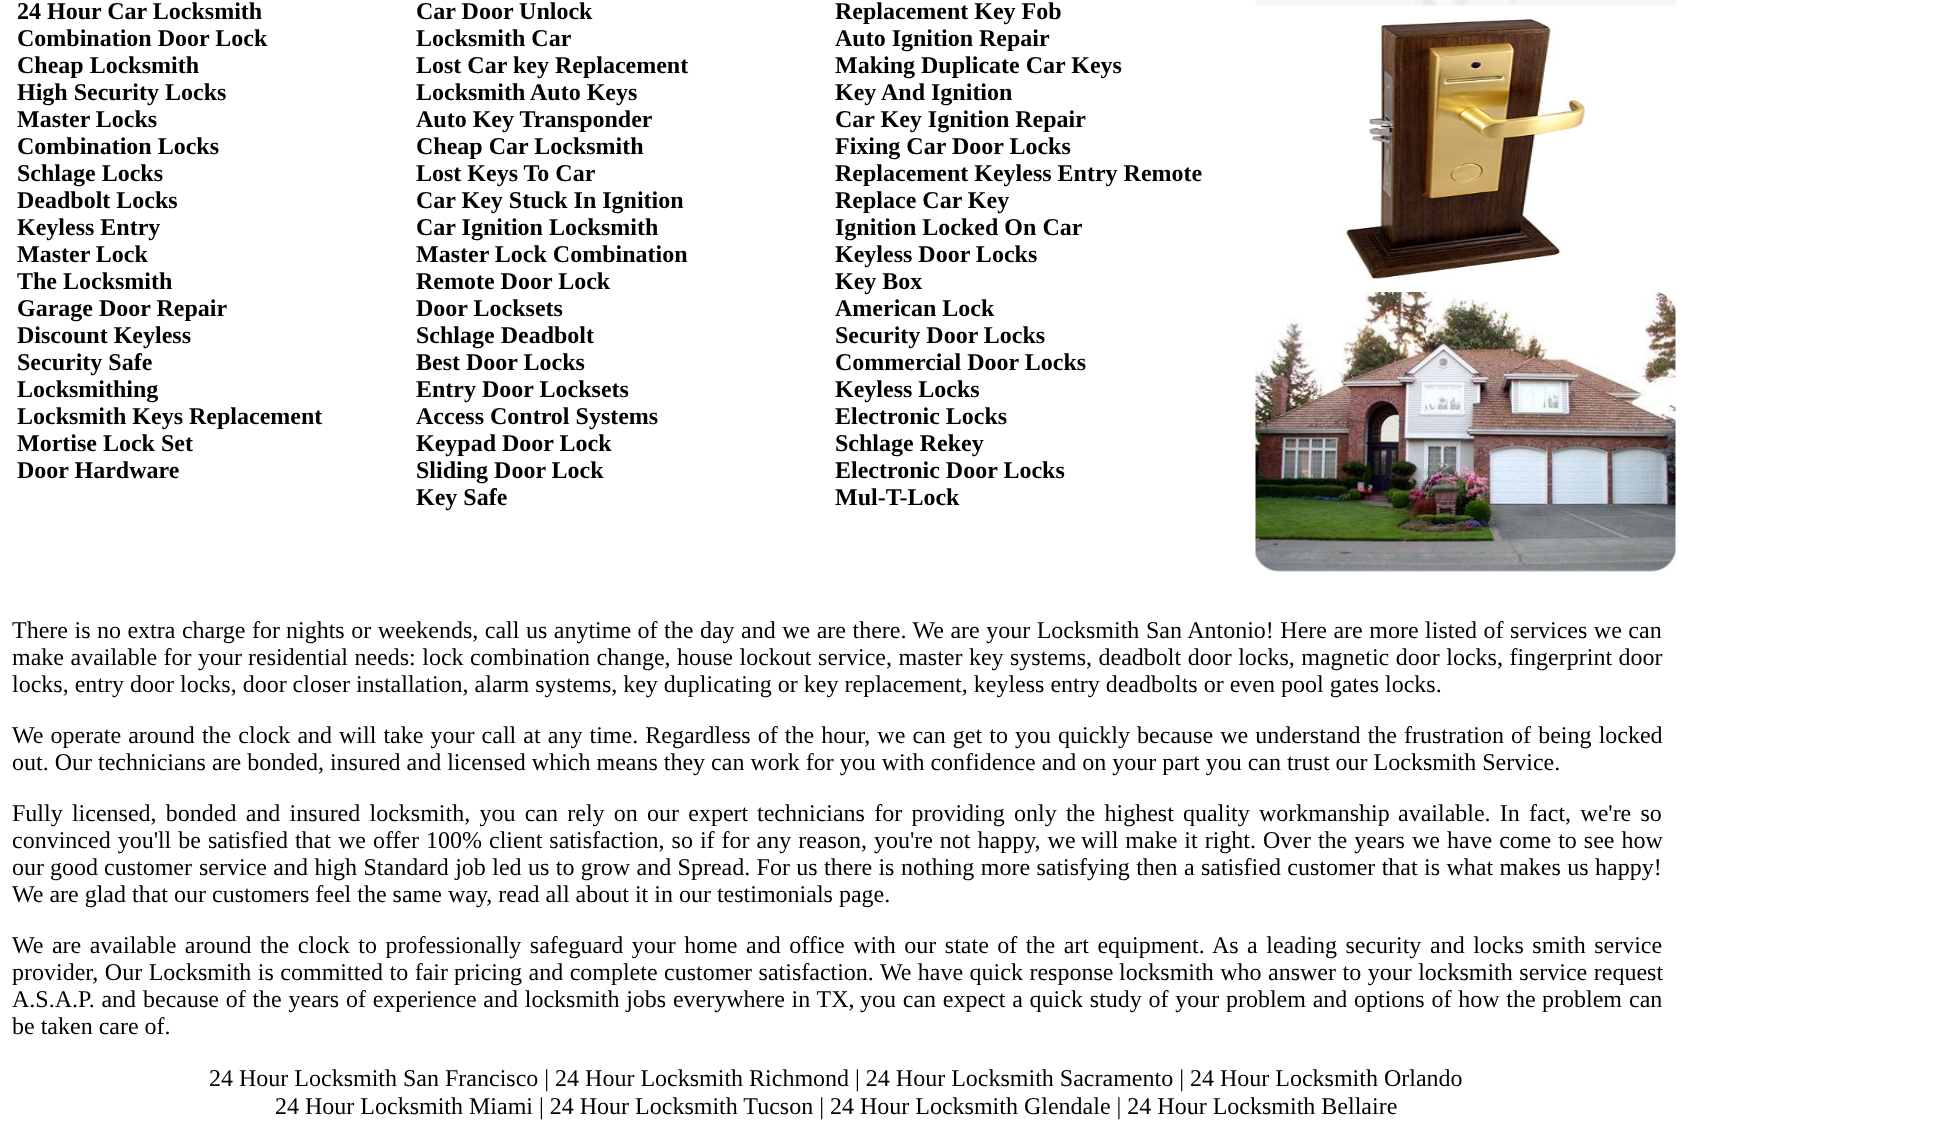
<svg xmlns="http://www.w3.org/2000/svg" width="1937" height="1129">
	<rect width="100%" height="100%" fill="#FFFFFF" />
	<g font-family="Liberation Serif" font-size="24" font-weight="700" fill="#000000">
		<text x="17" y="19">24 Hour Car Locksmith</text>
		<text x="17" y="46">Combination Door Lock</text>
		<text x="17" y="73">Cheap Locksmith</text>
		<text x="17" y="100">High Security Locks</text>
		<text x="17" y="127">Master Locks</text>
		<text x="17" y="154">Combination Locks</text>
		<text x="17" y="181">Schlage Locks</text>
		<text x="17" y="208">Deadbolt Locks</text>
		<text x="17" y="235">Keyless Entry</text>
		<text x="17" y="262">Master Lock</text>
		<text x="17" y="289">The Locksmith</text>
		<text x="17" y="316">Garage Door Repair</text>
		<text x="17" y="343">Discount Keyless</text>
		<text x="17" y="370">Security Safe</text>
		<text x="17" y="397">Locksmithing</text>
		<text x="17" y="424">Locksmith Keys Replacement</text>
		<text x="17" y="451">Mortise Lock Set</text>
		<text x="17" y="478">Door Hardware</text>
		<text x="416" y="19">Car Door Unlock</text>
		<text x="416" y="46">Locksmith Car</text>
		<text x="416" y="73">Lost Car key Replacement</text>
		<text x="416" y="100">Locksmith Auto Keys</text>
		<text x="416" y="127">Auto Key Transponder</text>
		<text x="416" y="154">Cheap Car Locksmith</text>
		<text x="416" y="181">Lost Keys To Car</text>
		<text x="416" y="208">Car Key Stuck In Ignition</text>
		<text x="416" y="235">Car Ignition Locksmith</text>
		<text x="416" y="262">Master Lock Combination</text>
		<text x="416" y="289">Remote Door Lock</text>
		<text x="416" y="316">Door Locksets</text>
		<text x="416" y="343">Schlage Deadbolt</text>
		<text x="416" y="370">Best Door Locks</text>
		<text x="416" y="397">Entry Door Locksets</text>
		<text x="416" y="424">Access Control Systems</text>
		<text x="416" y="451">Keypad Door Lock</text>
		<text x="416" y="478">Sliding Door Lock</text>
		<text x="416" y="505">Key Safe</text>
		<text x="835" y="19">Replacement Key Fob</text>
		<text x="835" y="46">Auto Ignition Repair</text>
		<text x="835" y="73">Making Duplicate Car Keys</text>
		<text x="835" y="100">Key And Ignition</text>
		<text x="835" y="127">Car Key Ignition Repair</text>
		<text x="835" y="154">Fixing Car Door Locks</text>
		<text x="835" y="181">Replacement Keyless Entry Remote</text>
		<text x="835" y="208">Replace Car Key</text>
		<text x="835" y="235">Ignition Locked On Car</text>
		<text x="835" y="262">Keyless Door Locks</text>
		<text x="835" y="289">Key Box</text>
		<text x="835" y="316">American Lock</text>
		<text x="835" y="343">Security Door Locks</text>
		<text x="835" y="370">Commercial Door Locks</text>
		<text x="835" y="397">Keyless Locks</text>
		<text x="835" y="424">Electronic Locks</text>
		<text x="835" y="451">Schlage Rekey</text>
		<text x="835" y="478">Electronic Door Locks</text>
		<text x="835" y="505">Mul-T-Lock</text>
	</g>
	<image x="1255" y="0" width="421" height="6" href="assets/img1.png" />
	<image x="1340" y="18" width="252" height="262" href="assets/img2.png" />
	<image x="1255" y="292" width="421" height="281" href="assets/img3.png" />
	<g font-family="Liberation Serif" font-size="24" fill="#000000">
		<text x="12" y="638" word-spacing="0.5">There is no extra charge for</text>
		<text x="286" y="638" word-spacing="0.5">nights or weekends, call us anytime of the day and we are there. We are your Locksmith</text>
		<text x="1146" y="638" word-spacing="0.5">San Antonio! Here are more listed of services we can</text>
		<text x="12" y="665" word-spacing="0.5">make available for your</text>
		<text x="248" y="665" word-spacing="0.5">residential needs: lock combination change, house lockout service, master key</text>
		<text x="1010" y="665" word-spacing="0.5">systems, deadbolt door locks, magnetic door locks, fingerprint door</text>
		<text x="12" y="692">locks, entry door locks, door closer installation, alarm systems, key duplicating or key replacement, keyless entry deadbolts or even pool gates locks.</text>
		<text x="12" y="743" word-spacing="1.1">We operate around the clock and</text>
		<text x="339" y="743" word-spacing="1.1">will take your call at any time. Regardless of the hour, we can get to you</text>
		<text x="1058" y="743" word-spacing="1.1">quickly because we understand the frustration of being locked</text>
		<text x="12" y="770">out. Our technicians are bonded, insured and licensed which means they can work for you with confidence and on your part you can trust our Locksmith Service.</text>
		<text x="12" y="821" word-spacing="3.25">Fully licensed, bonded and insured locksmith, you can rely on our expert</text>
		<text x="757" y="821" word-spacing="3.25">technicians for providing only the highest quality workmanship</text>
		<text x="1398" y="821" word-spacing="3.25">available. In fact, we're so</text>
		<text x="12" y="848" word-spacing="1">convinced you'll be satisfied that we offer</text>
		<text x="426" y="848" word-spacing="1">100% client satisfaction, so if for any reason, you're not happy, we</text>
		<text x="1081" y="848" word-spacing="1">will make it right. Over the years we have come to see how</text>
		<text x="12" y="875">our good customer</text>
		<text x="199" y="875" word-spacing="0.4">service and high Standard job led us to grow and Spread. For us there is</text>
		<text x="901" y="875" word-spacing="0.4">nothing more satisfying then a satisfied customer that is what makes us</text>
		<text x="1595" y="875">happy!</text>
		<text x="12" y="902">We are glad that our customers feel the same way, read all about it in our testimonials page.</text>
		<text x="12" y="953" word-spacing="2.5">We are available around the clock to professionally safeguard your home</text>
		<text x="746" y="953" word-spacing="2.5">and office with our state of the art equipment. As a leading security</text>
		<text x="1430" y="953" word-spacing="2.5">and locks smith service</text>
		<text x="12" y="980" word-spacing="0.5">provider, Our Locksmith is committed to fair</text>
		<text x="454" y="980" word-spacing="0.5">pricing and complete customer satisfaction. We have quick response</text>
		<text x="1119" y="980" word-spacing="0.5">locksmith who answer to your locksmith service request</text>
		<text x="12" y="1007" word-spacing="0.75">A.S.A.P. and</text>
		<text x="143" y="1007" word-spacing="0.75">because of the years of experience and locksmith jobs everywhere in TX,</text>
		<text x="860" y="1007" word-spacing="0.75">you can expect a quick study of your problem and options of how the</text>
		<text x="1542" y="1007" word-spacing="1">problem can</text>
		<text x="12" y="1034">be taken care of.</text>
		<text x="209" y="1086">24 Hour Locksmith San Francisco | 24 Hour Locksmith Richmond | 24 Hour Locksmith Sacramento | 24 Hour Locksmith Orlando</text>
		<text x="275" y="1114">24 Hour Locksmith Miami | 24 Hour Locksmith Tucson | 24 Hour Locksmith Glendale | 24 Hour Locksmith Bellaire</text>
	</g>
</svg>
